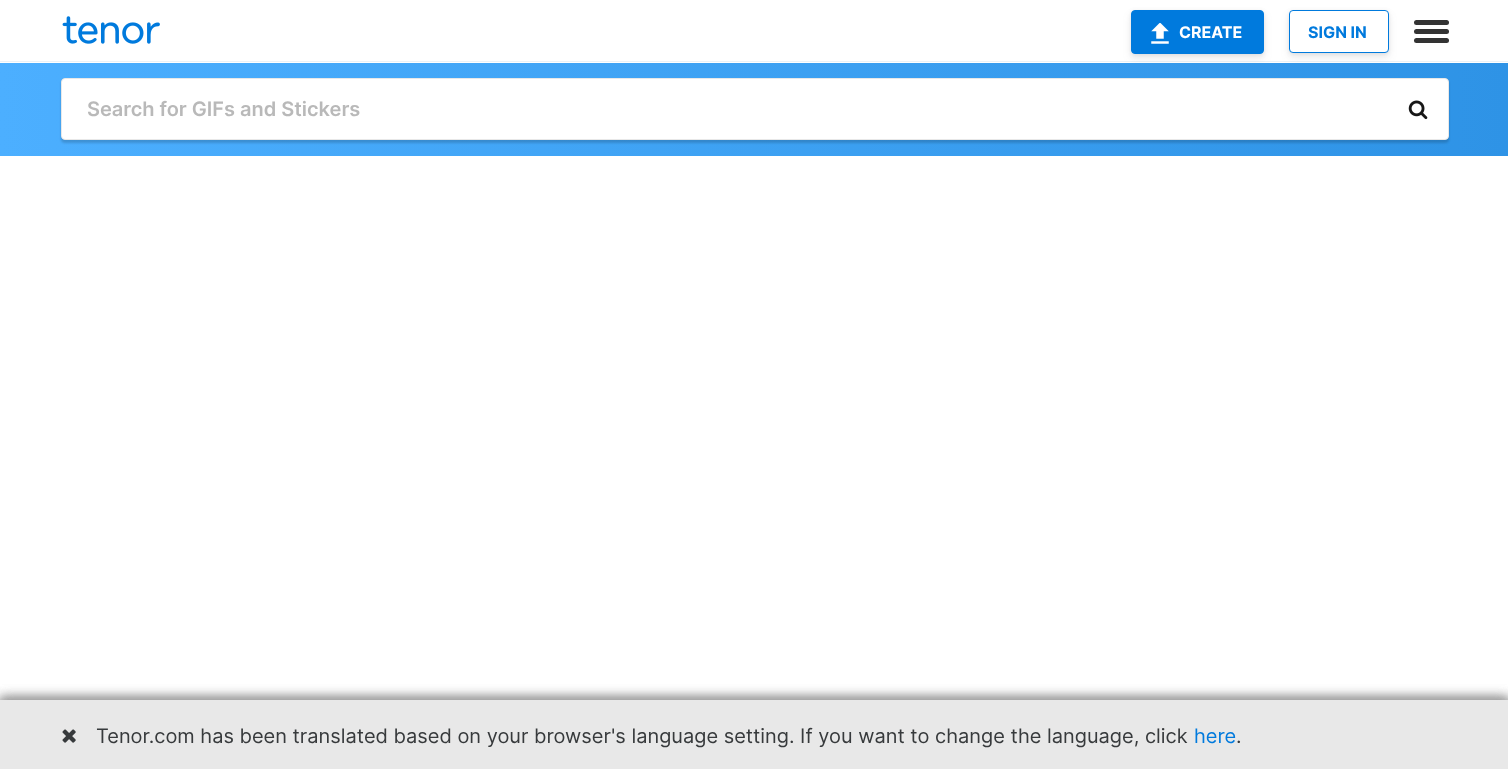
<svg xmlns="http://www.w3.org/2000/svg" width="1508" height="769">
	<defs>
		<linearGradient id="g1" gradientUnits="userSpaceOnUse" x1="0" y1="109" x2="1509" y2="109"><stop offset="0" stop-color="#4CAFFF" /><stop offset="1" stop-color="#2E93E6" /></linearGradient>
	</defs>
	<rect width="100%" height="100%" fill="#FFFFFF" />
	<rect x="0" y="61" width="1508" height="1" fill="#EBF2F7" />
	<image x="62" y="16" width="98" height="28" href="assets/img1.png" />
	<rect x="1131" y="15" width="133" height="44" rx="4" fill="#53535C" fill-opacity="0.11" filter="blur(4px)" />
	<rect x="1131" y="11" width="133" height="44" rx="4" fill="#000000" fill-opacity="0.08" filter="blur(2px)" />
	<rect x="1131.5" y="10.5" width="132" height="43" rx="3.5" fill="#007ADD" stroke="#007ADD" />
	<image x="1151" y="23" width="18" height="21" href="assets/img2.png" />
	<text x="1179" y="38" font-family="Inter" font-size="16" font-weight="700" fill="#FFFFFF">CREATE</text>
	<rect x="1289" y="15" width="100" height="43" rx="4" fill="#53535C" fill-opacity="0.11" filter="blur(4px)" />
	<rect x="1289" y="11" width="100" height="43" rx="4" fill="#000000" fill-opacity="0.08" filter="blur(2px)" />
	<rect x="1289.5" y="10.5" width="99" height="42" rx="3.5" fill="#FFFFFF" stroke="#007ADD" />
	<text x="1308" y="38" font-family="Inter" font-size="16" font-weight="700" fill="#007ADD">SIGN IN</text>
	<rect x="1414" y="29" width="35" height="5" rx="2.5" fill="#333333" />
	<rect x="1414" y="20" width="35" height="5" rx="2.5" fill="#333333" />
	<rect x="1414" y="38" width="35" height="5" rx="2.5" fill="#333333" />
	<rect x="0" y="63" width="1508" height="93" fill="url(#g1)" />
	<rect x="61" y="78" width="1388" height="62" rx="4" fill="#000000" fill-opacity="0.08" filter="blur(0.5px)" />
	<rect x="61" y="80" width="1388" height="63" rx="4" fill="#000000" fill-opacity="0.16" filter="blur(1px)" />
	<rect x="61.5" y="78.5" width="1387" height="61" rx="3.5" fill="#FFFFFF" stroke="#E8E8E8" />
	<text x="87" y="116" font-family="Inter" font-size="20" font-weight="600" fill="#B9B9B9">Search for GIFs and Stickers</text>
	<image x="1408" y="100" width="20" height="20" href="assets/img3.png" />
	<rect x="0" y="698" width="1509" height="70" fill="#999999" filter="blur(6px)" />
	<rect x="0" y="698" width="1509" height="70" fill="#999999" filter="blur(6px)" />
	<rect x="0" y="700" width="1508" height="69" fill="#E8E8E8" />
	<image x="62" y="729" width="14" height="14" href="assets/img4.png" />
	<text x="96" y="743" font-family="Inter" font-size="20" fill="#373A3C">Tenor.com has been translated based on your browser's language setting. If you want to change the language, click</text>
	<text x="1194" y="743" font-family="Inter" font-size="20" fill="#007ADD">here</text>
	<text x="1236" y="743" font-family="Inter" font-size="20" fill="#373A3C">.</text>
</svg>
